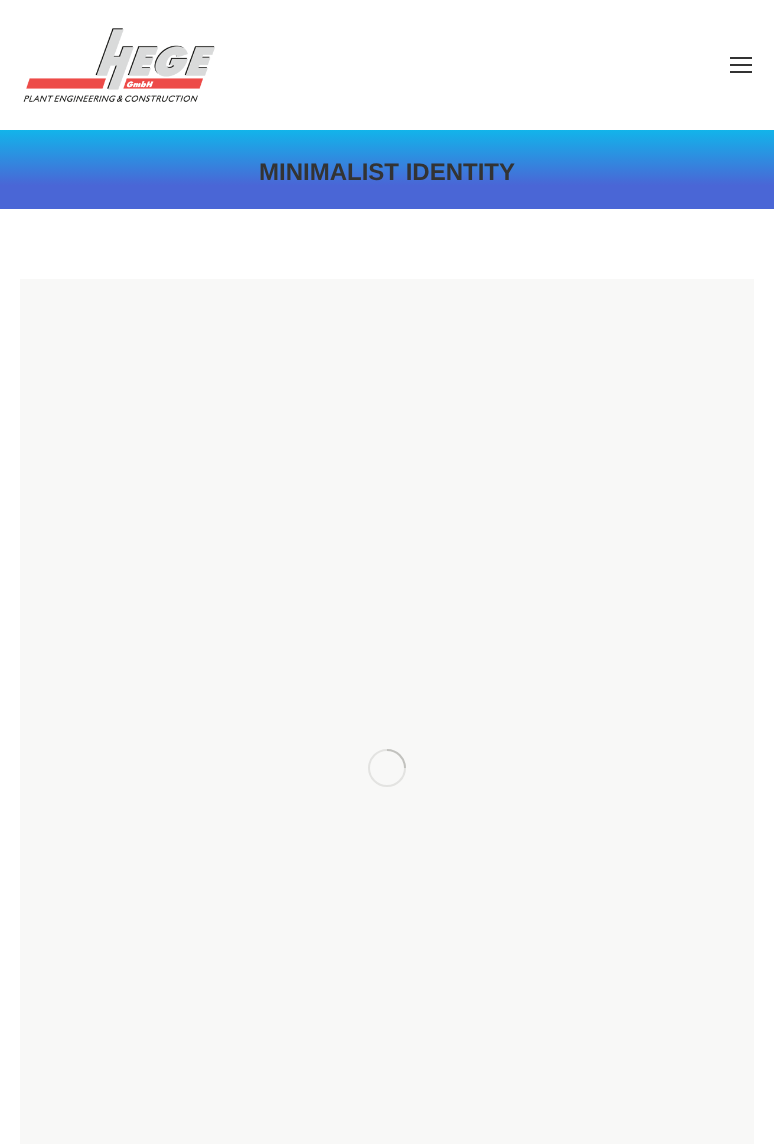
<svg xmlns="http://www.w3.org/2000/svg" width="774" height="1144">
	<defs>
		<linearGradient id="g1" gradientUnits="userSpaceOnUse" x1="387" y1="209" x2="387" y2="130"><stop offset="0.3" stop-color="#4A66D6" /><stop offset="1" stop-color="#12B4EA" /></linearGradient>
	</defs>
	<rect width="100%" height="100%" fill="#FFFFFF" />
	<image x="23" y="28" width="192" height="74" href="assets/img1.png" />
	<rect x="730" y="57" width="22" height="2" fill="#333333" />
	<rect x="730" y="64" width="22" height="2" fill="#333333" />
	<rect x="730" y="71" width="22" height="2" fill="#333333" />
	<rect x="0" y="130" width="774" height="79" fill="url(#g1)" />
	<text x="259" y="180" font-family="Liberation Sans" font-size="24" font-weight="700" fill="#333333">MINIMALIST IDENTITY</text>
	<rect x="20" y="279" width="734" height="865" fill="#F8F8F7" />
	<circle cx="387" cy="768" r="18" fill="none" stroke="#E3E3E1" stroke-width="2" />
	<path d="M405 768C405 758 397 750 387 750" fill="none" stroke="#5E5E57" stroke-opacity="0.25" stroke-width="2" />
</svg>
